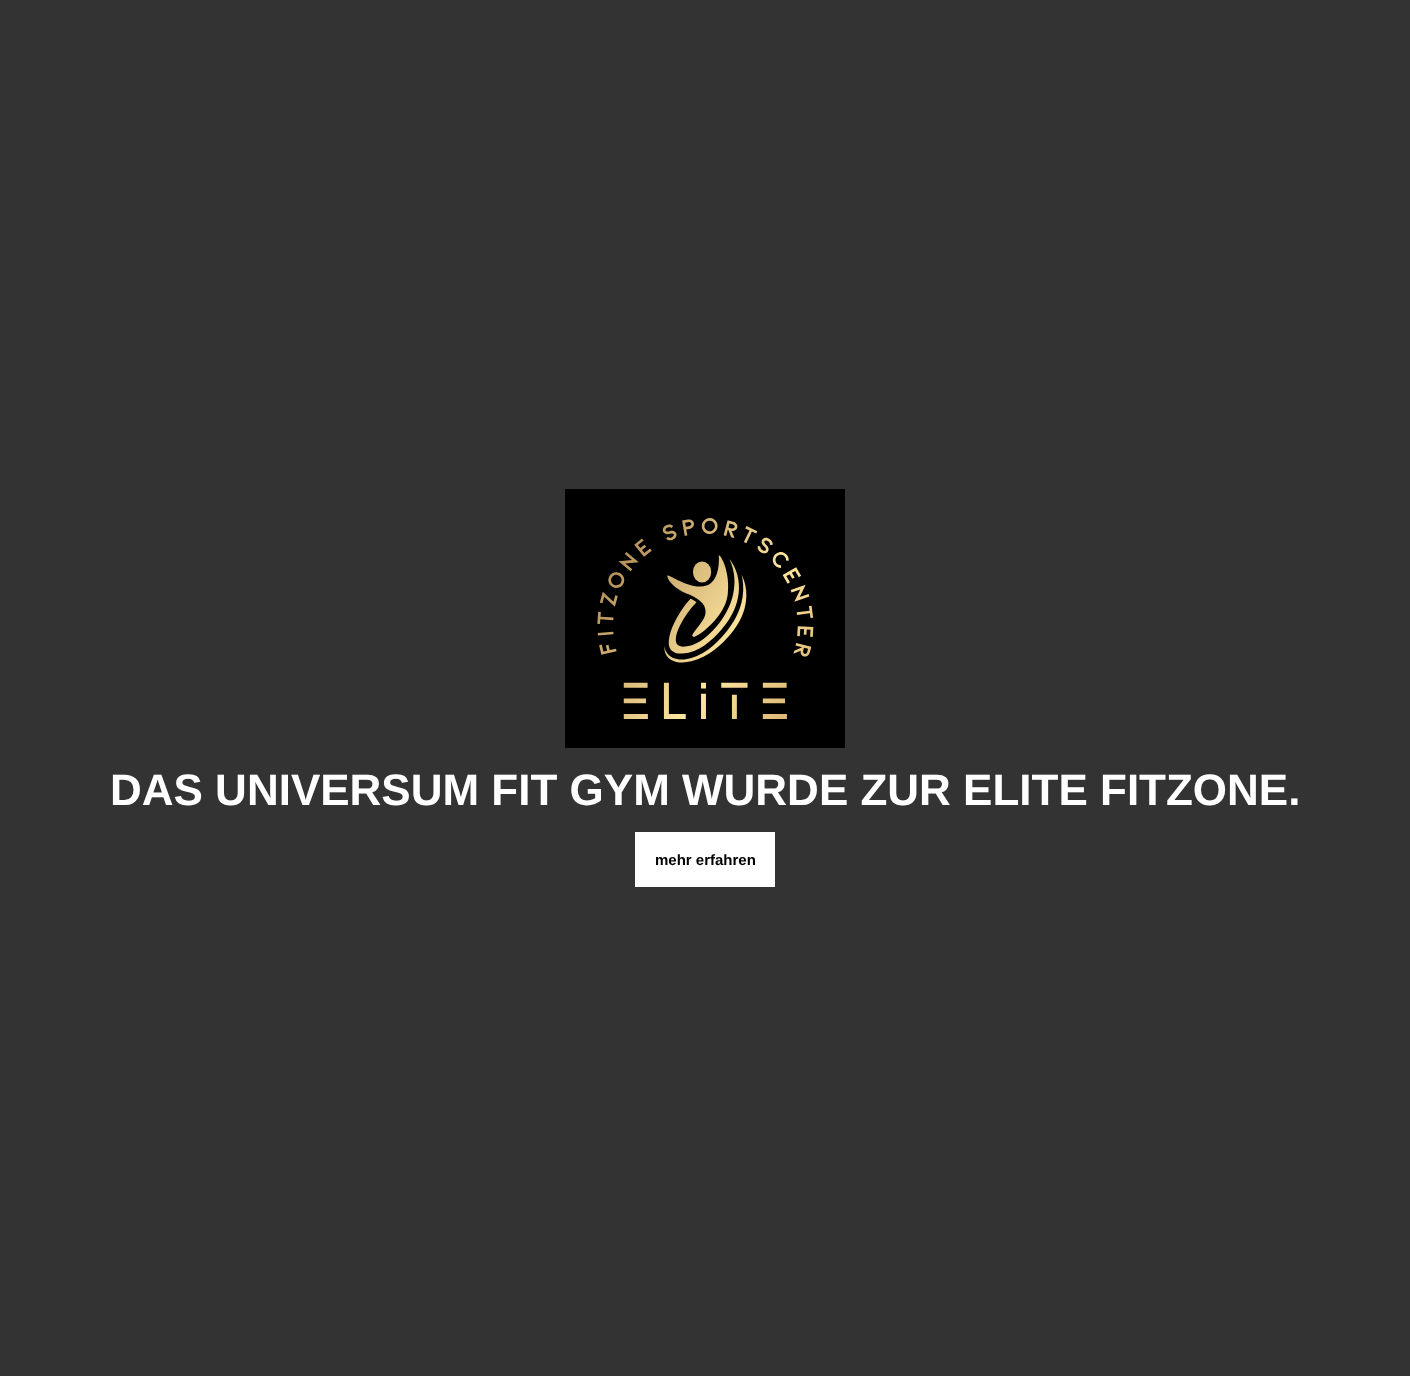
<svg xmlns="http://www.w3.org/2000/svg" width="1410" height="1376">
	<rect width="100%" height="100%" fill="#333333" />
	<image x="565" y="489" width="280" height="259" href="assets/img1.png" />
	<text x="110" y="805" font-family="Liberation Sans" font-size="44" font-weight="700" fill="#FFFFFF">DAS UNIVERSUM FIT GYM WURDE ZUR ELITE FITZONE.</text>
	<rect x="635" y="832" width="140" height="55" fill="#FFFFFF" />
	<text x="655" y="865" font-family="Liberation Sans" font-size="15" font-weight="700" fill="#000000">mehr erfahren</text>
</svg>
